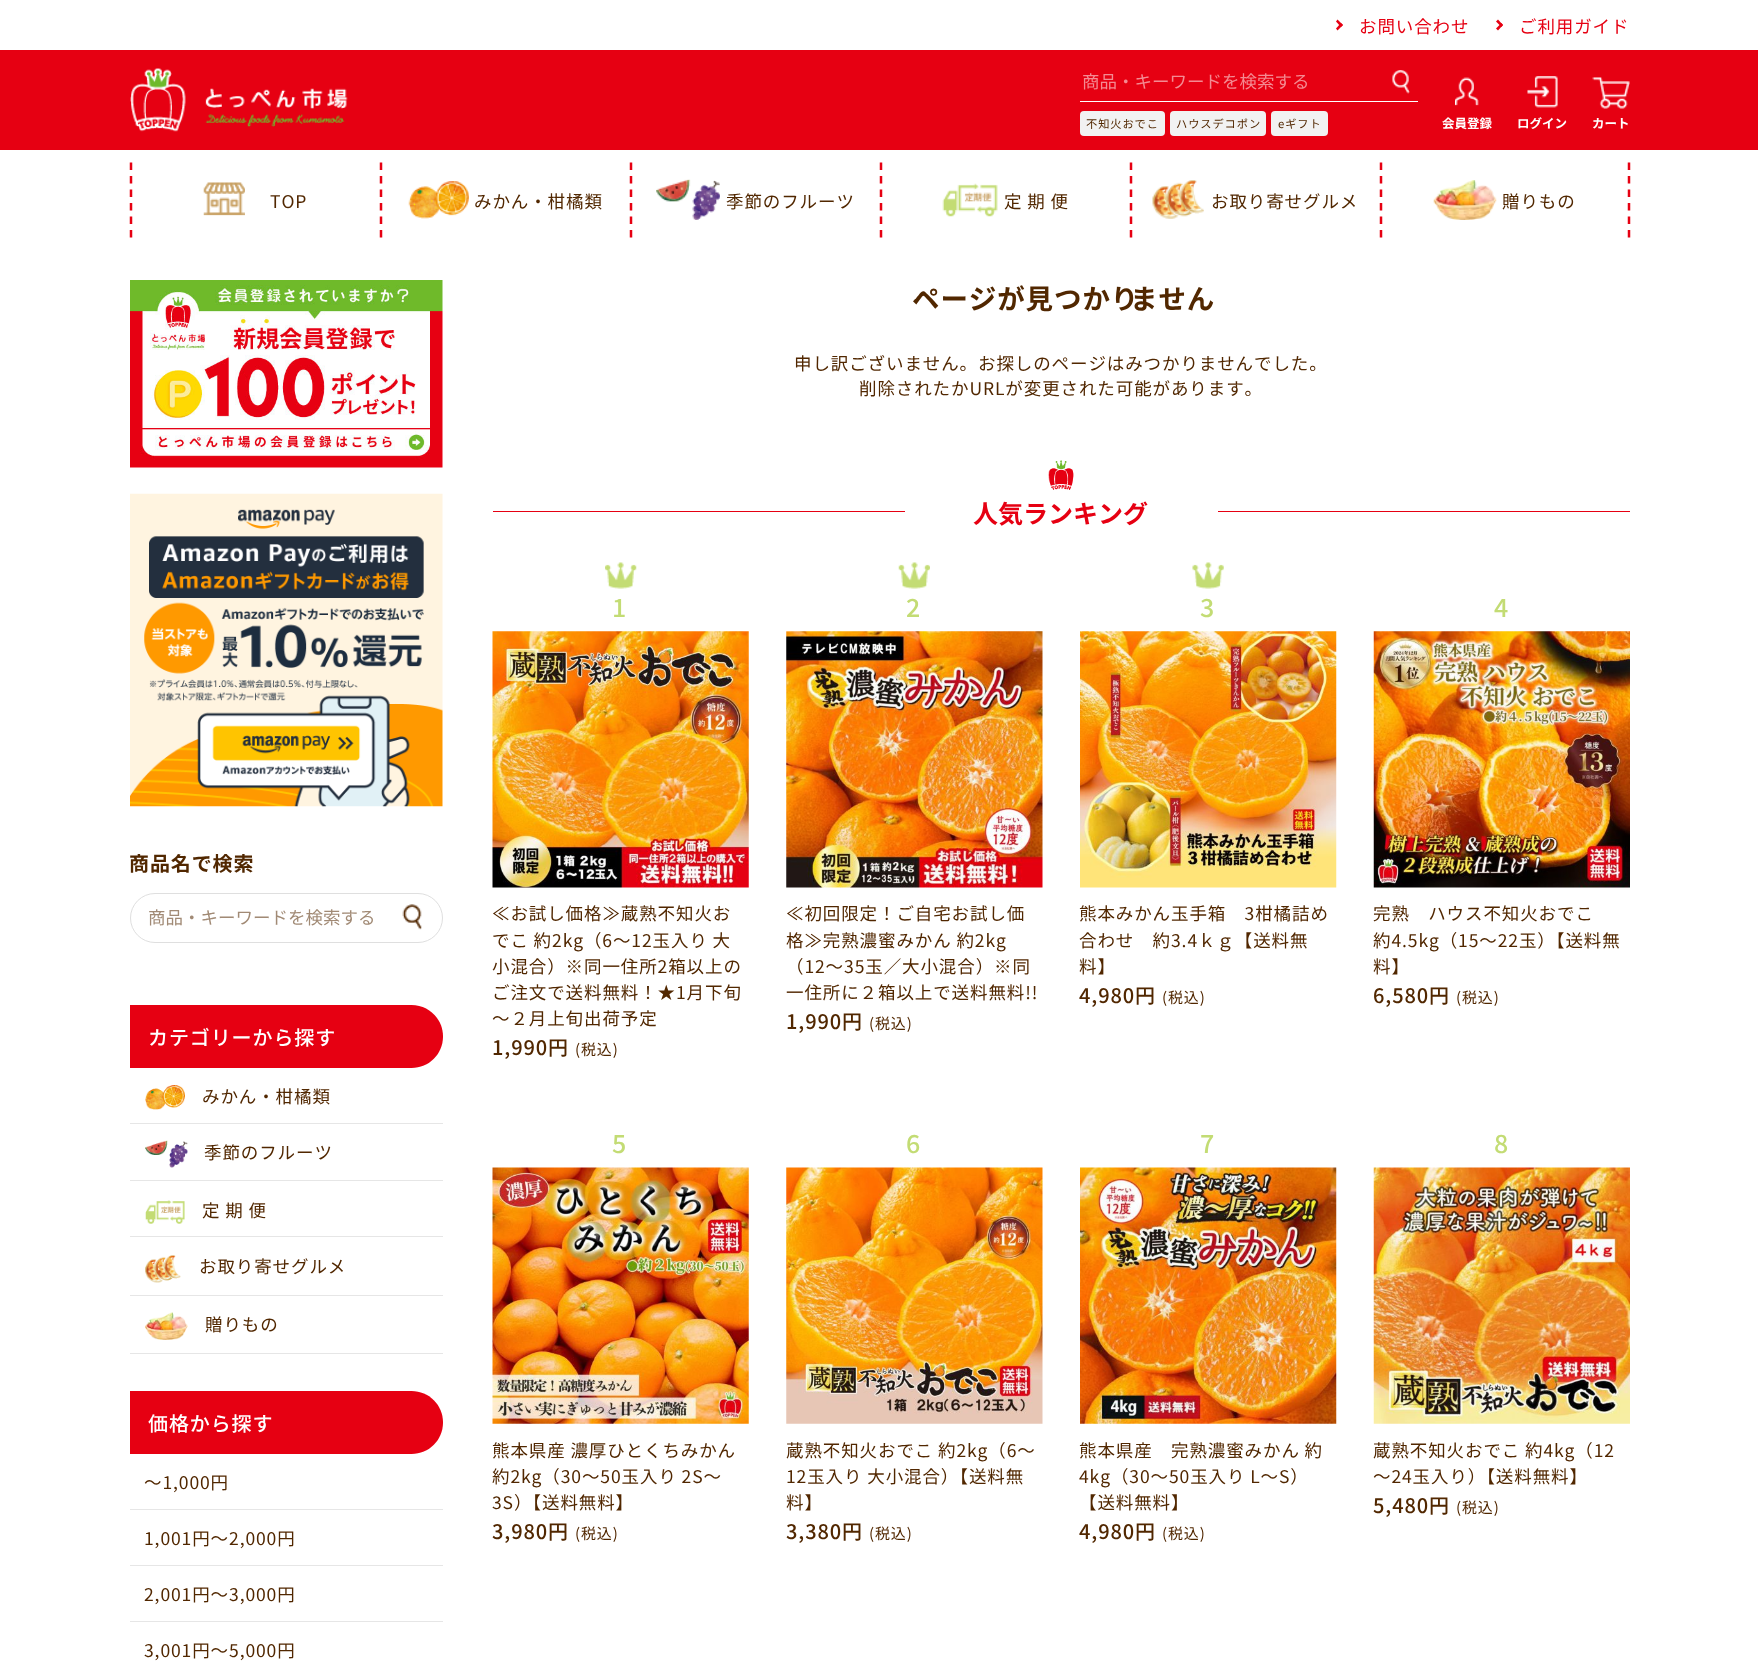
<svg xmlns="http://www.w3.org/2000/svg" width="1758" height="1675">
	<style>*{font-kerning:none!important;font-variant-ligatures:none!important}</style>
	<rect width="100%" height="100%" fill="#FFFFFF" />
	<path d="M1337.5 19.5L1343 25L1341 27L1336 21.5Z" fill="#E60012" />
	<path d="M1341 23L1343 25L1337.5 30.5L1336 28.5Z" fill="#E60012" />
	<text x="1359" y="33" font-family="Noto Sans JP" font-size="17.5" letter-spacing="0.9" fill="#E60012">お問い合わせ</text>
	<path d="M1498 19.5L1503 25L1501.5 27L1496 21.5Z" fill="#E60012" />
	<path d="M1501.5 23L1503 25L1498 30.5L1496 28.5Z" fill="#E60012" />
	<text x="1519" y="33" font-family="Noto Sans JP" font-size="17.5" letter-spacing="0.9" fill="#E60012">ご利用ガイド</text>
	<rect x="0" y="50" width="1758" height="100" fill="#E60012" />
	<image x="130" y="68" width="218" height="64" href="assets/img1.png" />
	<rect x="1080" y="101" width="338" height="1" fill="#FFFFFF" />
	<text x="1082" y="88" font-family="Noto Sans JP" font-size="17.5" fill="#F48A92">商品・キーワードを検索する</text>
	<image x="1392" y="70" width="18" height="24" href="assets/img2.png" />
	<rect x="1080" y="111" width="85" height="25" rx="4" fill="#F2F2F2" />
	<text x="1086" y="128" font-family="Noto Sans JP" font-size="11.25" letter-spacing="0.9" fill="#512700">不知火おでこ</text>
	<rect x="1170" y="111" width="96" height="25" rx="4" fill="#F2F2F2" />
	<text x="1176" y="128" font-family="Noto Sans JP" font-size="11.25" letter-spacing="0.9" fill="#512700">ハウスデコポン</text>
	<rect x="1271" y="111" width="57" height="25" rx="4" fill="#F2F2F2" />
	<text x="1278" y="128" font-family="Noto Sans JP" font-size="11.25" letter-spacing="0.9" fill="#512700">eギフト</text>
	<image x="1455" y="77" width="24" height="29" href="assets/img3.png" />
	<text x="1442" y="128" font-family="Noto Sans JP" font-size="12.5" font-weight="700" fill="#FFFFFF">会員登録</text>
	<image x="1527" y="76" width="31" height="32" href="assets/img4.png" />
	<text x="1517" y="128" font-family="Noto Sans JP" font-size="12.5" font-weight="700" fill="#FFFFFF">ログイン</text>
	<image x="1592" y="77" width="38" height="32" href="assets/img5.png" />
	<text x="1592" y="128" font-family="Noto Sans JP" font-size="12.5" font-weight="700" fill="#FFFFFF">カート</text>
	<path d="M131 162.5V237.5" fill="none" stroke="#E60012" stroke-width="2.5" stroke-dasharray="7.5 6" />
	<image x="203" y="182" width="42" height="34" href="assets/img6.png" />
	<text x="270" y="208" font-family="Noto Sans JP" font-size="17.5" letter-spacing="0.9" fill="#512700">TOP</text>
	<path d="M381 162.5V237.5" fill="none" stroke="#E60012" stroke-width="2.5" stroke-dasharray="7.5 6" />
	<image x="408" y="181" width="61" height="38" href="assets/img7.png" />
	<text x="474" y="208" font-family="Noto Sans JP" font-size="17.5" letter-spacing="0.9" fill="#512700">みかん・柑橘類</text>
	<path d="M631 162.5V237.5" fill="none" stroke="#E60012" stroke-width="2.5" stroke-dasharray="7.5 6" />
	<image x="656" y="179" width="64" height="41" href="assets/img8.png" />
	<text x="726" y="208" font-family="Noto Sans JP" font-size="17.5" letter-spacing="0.9" fill="#512700">季節のフルーツ</text>
	<path d="M881 162.5V237.5" fill="none" stroke="#E60012" stroke-width="2.5" stroke-dasharray="7.5 6" />
	<image x="942" y="183" width="56" height="34" href="assets/img9.png" />
	<text x="1004" y="208" font-family="Noto Sans JP" font-size="17.5" letter-spacing="0.9" fill="#512700">定 期 便</text>
	<path d="M1131 162.5V237.5" fill="none" stroke="#E60012" stroke-width="2.5" stroke-dasharray="7.5 6" />
	<image x="1152" y="180" width="52" height="39" href="assets/img10.png" />
	<text x="1211" y="208" font-family="Noto Sans JP" font-size="17.5" letter-spacing="0.9" fill="#512700">お取り寄せグルメ</text>
	<path d="M1629 162.5V237.5" fill="none" stroke="#E60012" stroke-width="2.5" stroke-dasharray="7.5 6" />
	<path d="M1381 162.5V237.5" fill="none" stroke="#E60012" stroke-width="2.5" stroke-dasharray="7.5 6" />
	<image x="1433" y="180" width="64" height="40" href="assets/img11.png" />
	<text x="1502" y="208" font-family="Noto Sans JP" font-size="17.5" letter-spacing="0.9" fill="#512700">贈りもの</text>
	<image x="130" y="280" width="313" height="188" href="assets/img12.png" />
	<image x="130" y="493" width="313" height="314" href="assets/img13.png" />
	<text x="129" y="871" font-family="Noto Sans JP" font-size="20" font-weight="700" letter-spacing="0.9" fill="#512700">商品名で検索</text>
	<rect x="130.5" y="893.5" width="312" height="49" rx="24.5" fill="none" stroke="#DFDFDF" />
	<text x="148" y="924" font-family="Noto Sans JP" font-size="17.5" fill="#A18A75">商品・キーワードを検索する</text>
	<image x="402" y="904" width="20" height="26" href="assets/img14.png" />
	<path d="M130 1005H411.5C429 1005 443 1019 443 1036.5C443 1054 429 1068 411.5 1068H130Z" fill="#E60012" />
	<text x="148" y="1045" font-family="Noto Sans JP" font-size="20" font-weight="500" letter-spacing="0.9" fill="#FFFFFF">カテゴリーから探す</text>
	<rect x="130" y="1123" width="313" height="1" fill="#E6E6E6" />
	<image x="145" y="1085" width="40" height="25" href="assets/img15.png" />
	<text x="202" y="1103" font-family="Noto Sans JP" font-size="17.5" letter-spacing="0.9" fill="#512700">みかん・柑橘類</text>
	<rect x="130" y="1180" width="313" height="1" fill="#E6E6E6" />
	<image x="145" y="1140" width="43" height="28" href="assets/img16.png" />
	<text x="204" y="1159" font-family="Noto Sans JP" font-size="17.5" letter-spacing="0.9" fill="#512700">季節のフルーツ</text>
	<rect x="130" y="1236" width="313" height="1" fill="#E6E6E6" />
	<image x="145" y="1200" width="40" height="24" href="assets/img17.png" />
	<text x="202" y="1217" font-family="Noto Sans JP" font-size="17.5" letter-spacing="0.9" fill="#512700">定 期 便</text>
	<rect x="130" y="1295" width="313" height="1" fill="#E6E6E6" />
	<image x="145" y="1255" width="36" height="28" href="assets/img18.png" />
	<text x="199" y="1273" font-family="Noto Sans JP" font-size="17.5" letter-spacing="0.9" fill="#512700">お取り寄せグルメ</text>
	<rect x="130" y="1353" width="313" height="1" fill="#E6E6E6" />
	<image x="145" y="1312" width="43" height="28" href="assets/img19.png" />
	<text x="205" y="1331" font-family="Noto Sans JP" font-size="17.5" letter-spacing="0.9" fill="#512700">贈りもの</text>
	<path d="M130 1391H411.5C429 1391 443 1405 443 1422.5C443 1440 429 1454 411.5 1454H130Z" fill="#E60012" />
	<text x="148" y="1431" font-family="Noto Sans JP" font-size="20" font-weight="500" letter-spacing="0.9" fill="#FFFFFF">価格から探す</text>
	<rect x="130" y="1509" width="313" height="1" fill="#E6E6E6" />
	<text x="144" y="1489" font-family="Noto Sans JP" font-size="17.5" letter-spacing="0.9" fill="#512700">～1,000円</text>
	<rect x="130" y="1565" width="313" height="1" fill="#E6E6E6" />
	<text x="144" y="1545" font-family="Noto Sans JP" font-size="17.5" letter-spacing="0.9" fill="#512700">1,001円～2,000円</text>
	<rect x="130" y="1621" width="313" height="1" fill="#E6E6E6" />
	<g font-family="Noto Sans JP" font-size="17.5" letter-spacing="0.9" fill="#512700">
		<text x="144" y="1601">2,001円～3,000円</text>
		<text x="144" y="1657">3,001円～5,000円</text>
	</g>
	<text x="912" y="309" font-family="Noto Sans JP" font-size="27.5" font-weight="700" letter-spacing="0.9" fill="#512700">ページが見つかり</text>
	<text x="1130" y="309" font-family="Noto Sans JP" font-size="27.5" font-weight="700" letter-spacing="0.9" fill="#512700">ません</text>
	<g font-family="Noto Sans JP" font-size="17.5" letter-spacing="0.9" fill="#512700">
		<text x="794" y="370">申し訳ございません。お探しのページはみつかりませんでした。</text>
		<text x="859" y="395">削除されたかURLが変更された可能があります。</text>
	</g>
	<rect x="493" y="511" width="1137" height="1" fill="#E60012" />
	<rect x="905" y="511" width="313" height="1" fill="#FFFFFF" />
	<image x="1048" y="460" width="26" height="30" href="assets/img20.png" />
	<text x="973" y="523" font-family="Noto Sans JP" font-size="25" font-weight="700" fill="#E60012">人気ランキング</text>
	<image x="605" y="562" width="32" height="27" href="assets/img21.png" />
	<text x="612" y="617" font-family="Noto Sans JP" font-size="25" font-weight="500" letter-spacing="0.9" fill="#C3DC74">1</text>
	<image x="492" y="631" width="257" height="257" href="assets/img22.png" />
	<g font-family="Noto Sans JP" font-size="17.5" letter-spacing="0.9" fill="#512700">
		<text x="492" y="920">≪お試し価格≫蔵熟不知火お</text>
		<text x="492" y="947">でこ 約2kg（6～12玉入り 大</text>
		<text x="492" y="973">小混合）※同一住所2箱以上の</text>
		<text x="492" y="999">ご注文で送料無料！★1月下旬</text>
		<text x="492" y="1025">～２月上旬出荷予定</text>
	</g>
	<text x="492" y="1055" font-family="Noto Sans JP" font-size="20" font-weight="500" letter-spacing="0.9" fill="#512700">1,990円</text>
	<text x="575" y="1055" font-family="Noto Sans JP" font-size="15" letter-spacing="0.9" fill="#512700">(税込)</text>
	<image x="898" y="562" width="32" height="27" href="assets/img23.png" />
	<text x="906" y="617" font-family="Noto Sans JP" font-size="25" font-weight="500" letter-spacing="0.9" fill="#C3DC74">2</text>
	<image x="786" y="631" width="257" height="257" href="assets/img24.png" />
	<g font-family="Noto Sans JP" font-size="17.5" letter-spacing="0.9" fill="#512700">
		<text x="786" y="920">≪初回限定！ご自宅お試し価</text>
		<text x="786" y="947">格≫完熟濃蜜みかん 約2kg</text>
		<text x="786" y="973">（12～35玉／大小混合）※同</text>
		<text x="786" y="999">一住所に２箱以上で送料無料!!</text>
	</g>
	<text x="786" y="1029" font-family="Noto Sans JP" font-size="20" font-weight="500" letter-spacing="0.9" fill="#512700">1,990円</text>
	<text x="869" y="1029" font-family="Noto Sans JP" font-size="15" letter-spacing="0.9" fill="#512700">(税込)</text>
	<image x="1192" y="562" width="32" height="27" href="assets/img25.png" />
	<text x="1200" y="617" font-family="Noto Sans JP" font-size="25" font-weight="500" letter-spacing="0.9" fill="#C3DC74">3</text>
	<image x="1080" y="631" width="257" height="257" href="assets/img26.png" />
	<g font-family="Noto Sans JP" font-size="17.5" letter-spacing="0.9" fill="#512700">
		<text x="1079" y="920">熊本みかん玉手箱　3柑橘詰め</text>
		<text x="1079" y="947">合わせ　約3.4ｋｇ【送料無</text>
		<text x="1079" y="973">料】</text>
	</g>
	<text x="1079" y="1003" font-family="Noto Sans JP" font-size="20" font-weight="500" letter-spacing="0.9" fill="#512700">4,980円</text>
	<text x="1162" y="1003" font-family="Noto Sans JP" font-size="15" letter-spacing="0.9" fill="#512700">(税込)</text>
	<text x="1494" y="617" font-family="Noto Sans JP" font-size="25" font-weight="500" letter-spacing="0.9" fill="#C3DC74">4</text>
	<image x="1373" y="631" width="257" height="257" href="assets/img27.png" />
	<g font-family="Noto Sans JP" font-size="17.5" letter-spacing="0.9" fill="#512700">
		<text x="1373" y="920">完熟　ハウス不知火おでこ</text>
		<text x="1373" y="947">約4.5kg（15～22玉）【送料無</text>
		<text x="1373" y="973">料】</text>
	</g>
	<text x="1373" y="1003" font-family="Noto Sans JP" font-size="20" font-weight="500" letter-spacing="0.9" fill="#512700">6,580円</text>
	<text x="1456" y="1003" font-family="Noto Sans JP" font-size="15" letter-spacing="0.9" fill="#512700">(税込)</text>
	<text x="612" y="1153" font-family="Noto Sans JP" font-size="25" font-weight="500" letter-spacing="0.9" fill="#C3DC74">5</text>
	<image x="492" y="1167" width="257" height="257" href="assets/img28.png" />
	<g font-family="Noto Sans JP" font-size="17.5" letter-spacing="0.9" fill="#512700">
		<text x="492" y="1457">熊本県産 濃厚ひとくちみかん</text>
		<text x="492" y="1483">約2kg（30～50玉入り 2S～</text>
		<text x="492" y="1509">3S）【送料無料】</text>
	</g>
	<text x="492" y="1539" font-family="Noto Sans JP" font-size="20" font-weight="500" letter-spacing="0.9" fill="#512700">3,980円</text>
	<text x="575" y="1539" font-family="Noto Sans JP" font-size="15" letter-spacing="0.9" fill="#512700">(税込)</text>
	<text x="906" y="1153" font-family="Noto Sans JP" font-size="25" font-weight="500" letter-spacing="0.9" fill="#C3DC74">6</text>
	<image x="786" y="1167" width="257" height="257" href="assets/img29.png" />
	<g font-family="Noto Sans JP" font-size="17.5" letter-spacing="0.9" fill="#512700">
		<text x="786" y="1457">蔵熟不知火おでこ 約2kg（6～</text>
		<text x="786" y="1483">12玉入り 大小混合）【送料無</text>
		<text x="786" y="1509">料】</text>
	</g>
	<text x="786" y="1539" font-family="Noto Sans JP" font-size="20" font-weight="500" letter-spacing="0.9" fill="#512700">3,380円</text>
	<text x="869" y="1539" font-family="Noto Sans JP" font-size="15" letter-spacing="0.9" fill="#512700">(税込)</text>
	<text x="1200" y="1153" font-family="Noto Sans JP" font-size="25" font-weight="500" letter-spacing="0.9" fill="#C3DC74">7</text>
	<image x="1080" y="1167" width="257" height="257" href="assets/img30.png" />
	<g font-family="Noto Sans JP" font-size="17.5" letter-spacing="0.9" fill="#512700">
		<text x="1079" y="1457">熊本県産　完熟濃蜜みかん 約</text>
		<text x="1079" y="1483">4kg（30～50玉入り L～S）</text>
		<text x="1079" y="1509">【送料無料】</text>
	</g>
	<text x="1079" y="1539" font-family="Noto Sans JP" font-size="20" font-weight="500" letter-spacing="0.9" fill="#512700">4,980円</text>
	<text x="1162" y="1539" font-family="Noto Sans JP" font-size="15" letter-spacing="0.9" fill="#512700">(税込)</text>
	<text x="1494" y="1153" font-family="Noto Sans JP" font-size="25" font-weight="500" letter-spacing="0.9" fill="#C3DC74">8</text>
	<image x="1373" y="1167" width="257" height="257" href="assets/img31.png" />
	<g font-family="Noto Sans JP" font-size="17.5" letter-spacing="0.9" fill="#512700">
		<text x="1373" y="1457">蔵熟不知火おでこ 約4kg（12</text>
		<text x="1373" y="1483">～24玉入り）【送料無料】</text>
	</g>
	<text x="1373" y="1513" font-family="Noto Sans JP" font-size="20" font-weight="500" letter-spacing="0.9" fill="#512700">5,480円</text>
	<text x="1456" y="1513" font-family="Noto Sans JP" font-size="15" letter-spacing="0.9" fill="#512700">(税込)</text>
</svg>
